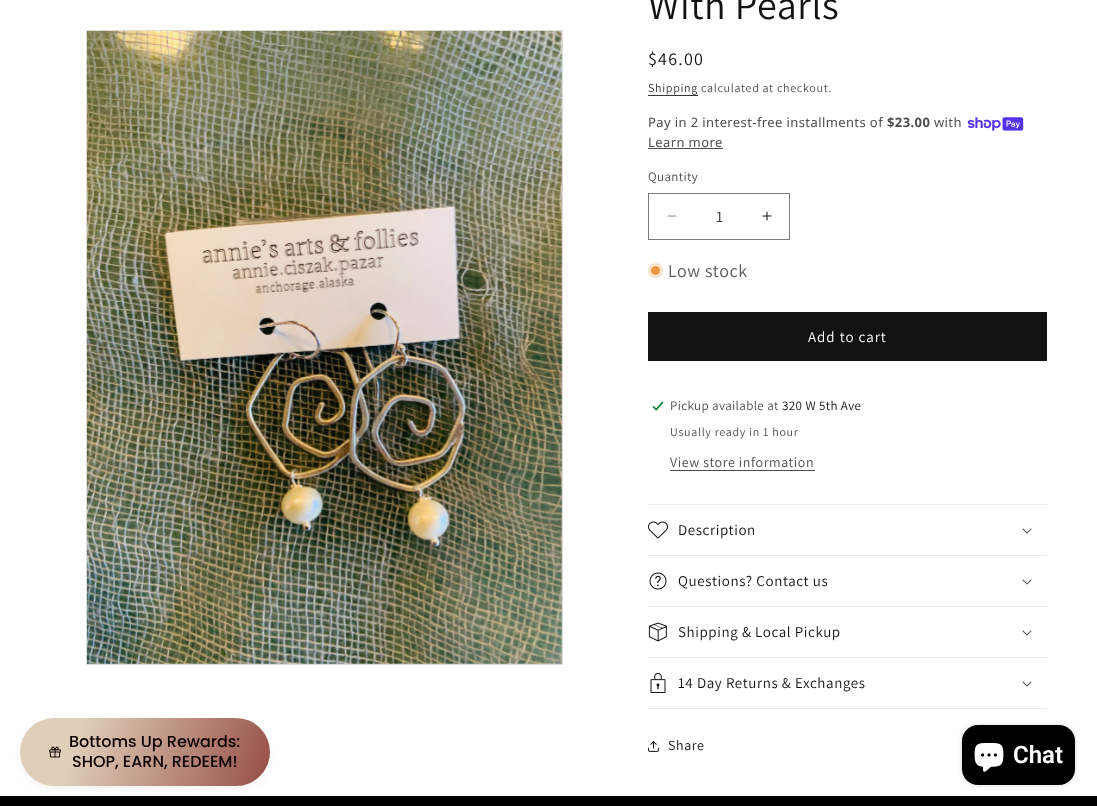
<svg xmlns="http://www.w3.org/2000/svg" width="1097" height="806">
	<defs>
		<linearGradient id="g1" gradientUnits="userSpaceOnUse" x1="23" y1="709" x2="364" y2="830"><stop offset="0.17" stop-color="#DFCEB8" /><stop offset="1" stop-color="#6E0A0A" /></linearGradient>
	</defs>
	<rect width="100%" height="100%" fill="#FFFFFF" />
	<rect x="0" y="796" width="1097" height="10" fill="#000000" />
	<rect x="22" y="724" width="246" height="64" rx="32" fill="#444444" fill-opacity="0.08" filter="blur(4px)" />
	<rect x="20" y="718" width="250" height="68" rx="34" fill="url(#g1)" />
	<image x="49" y="746" width="12" height="12" href="assets/img1.png" />
	<g font-family="Poppins" font-size="16" font-weight="500" fill="#0B0101">
		<text x="69" y="747">Bottoms Up Rewards:</text>
		<text x="72" y="767">SHOP, EARN, REDEEM!</text>
	</g>
	<rect x="86.5" y="30.5" width="476" height="634" fill="none" stroke="#DBDBDB" />
	<image x="87" y="31" width="475" height="633" href="assets/img2.png" />
	<text x="648" y="19" font-family="Assistant" font-size="40" letter-spacing="0.6" fill="#121212">With Pearls</text>
	<text x="648" y="65" font-family="Assistant" font-size="18" letter-spacing="1.25" fill="#121212">$46.00</text>
	<text x="648" y="92" font-family="Assistant" font-size="12" letter-spacing="0.7" fill="#363636">Shipping</text>
	<rect x="648" y="95" width="50" height="1" fill="#363636" />
	<text x="701" y="92" font-family="Assistant" font-size="12" letter-spacing="0.7" fill="#4D4D4D">calculated at checkout.</text>
	<text x="648" y="127" font-family="Noto Sans" font-size="13" letter-spacing="0.4" fill="#4D4D4D">Pay in 2 interest-free installments of</text>
	<text x="887" y="127" font-family="Noto Sans" font-size="13" font-weight="700" letter-spacing="0.4" fill="#4D4D4D">$23.00</text>
	<text x="934" y="127" font-family="Noto Sans" font-size="13" letter-spacing="0.4" fill="#4D4D4D">with</text>
	<image x="967" y="117" width="57" height="14" href="assets/img3.png" />
	<text x="648" y="147" font-family="Noto Sans" font-size="13" letter-spacing="0.4" fill="#4D4D4D">Learn more</text>
	<rect x="648" y="148" width="75" height="1" fill="#4D4D4D" />
	<text x="648" y="181" font-family="Assistant" font-size="13" letter-spacing="0.4" fill="#4D4D4D">Quantity</text>
	<image x="667" y="215" width="10" height="2" href="assets/img4.png" />
	<image x="762" y="211" width="10" height="10" href="assets/img5.png" />
	<rect x="648.5" y="193.5" width="141" height="46" fill="none" stroke="#7D7D7D" />
	<text x="716" y="222" font-family="Assistant" font-size="16" fill="#363636">1</text>
	<circle cx="655.5" cy="270.5" r="7.5" fill="#FADFC6" />
	<circle cx="655.5" cy="270.5" r="5" fill="#EE9441" stroke="#FFFFFF" />
	<text x="668" y="277" font-family="Assistant" font-size="18" letter-spacing="0.6" fill="#595959">Low stock</text>
	<rect x="648" y="312" width="399" height="49" fill="#121212" />
	<text x="808" y="342" font-family="Assistant" font-size="15" letter-spacing="1" fill="#FFFFFF">Add to cart</text>
	<image x="652" y="401" width="12" height="10" href="assets/img6.png" />
	<text x="670" y="410" font-family="Assistant" font-size="13" letter-spacing="0.4" fill="#4D4D4D">Pickup available at</text>
	<text x="782" y="410" font-family="Assistant" font-size="13" letter-spacing="0.4" fill="#121212">320 W 5th Ave</text>
	<text x="670" y="436" font-family="Assistant" font-size="12" letter-spacing="0.7" fill="#4D4D4D">Usually ready in 1 hour</text>
	<text x="670" y="467" font-family="Assistant" font-size="14" letter-spacing="0.6" fill="#4D4D4D">View store information</text>
	<rect x="670" y="470" width="145" height="1" fill="#4D4D4D" />
	<rect x="648" y="504" width="399" height="1" fill="#ECECEC" />
	<rect x="648" y="555" width="399" height="1" fill="#ECECEC" />
	<image x="648" y="521" width="20" height="18" href="assets/img7.png" />
	<text x="678" y="535" font-family="Assistant" font-size="15" letter-spacing="0.6" fill="#121212">Description</text>
	<image x="1022" y="528" width="10" height="6" href="assets/img8.png" />
	<rect x="648" y="606" width="399" height="1" fill="#ECECEC" />
	<image x="649" y="572" width="18" height="18" href="assets/img9.png" />
	<text x="678" y="586" font-family="Assistant" font-size="15" letter-spacing="0.6" fill="#121212">Questions? Contact us</text>
	<image x="1022" y="579" width="10" height="6" href="assets/img8.png" />
	<rect x="648" y="657" width="399" height="1" fill="#ECECEC" />
	<image x="648" y="622" width="19" height="20" href="assets/img10.png" />
	<text x="678" y="637" font-family="Assistant" font-size="15" letter-spacing="0.6" fill="#121212">Shipping &amp; Local Pickup</text>
	<image x="1022" y="630" width="10" height="6" href="assets/img8.png" />
	<rect x="648" y="708" width="399" height="1" fill="#ECECEC" />
	<image x="650" y="673" width="16" height="20" href="assets/img11.png" />
	<text x="678" y="688" font-family="Assistant" font-size="15" letter-spacing="0.6" fill="#121212">14 Day Returns &amp; Exchanges</text>
	<image x="1022" y="681" width="10" height="6" href="assets/img8.png" />
	<image x="648" y="741" width="11" height="11" href="assets/img12.png" />
	<text x="668" y="750" font-family="Assistant" font-size="14" letter-spacing="0.6" fill="#121212">Share</text>
	<rect x="962" y="725" width="113" height="60" rx="16" fill="#000000" fill-opacity="0.15" filter="blur(2.5px)" />
	<rect x="962" y="725" width="113" height="60" rx="16" fill="#000000" />
	<image x="974" y="743" width="30" height="29" href="assets/img13.png" />
	<text x="1013" y="763" font-family="Roboto" font-size="24" font-weight="600" fill="#FFFFFF">Chat</text>
</svg>
